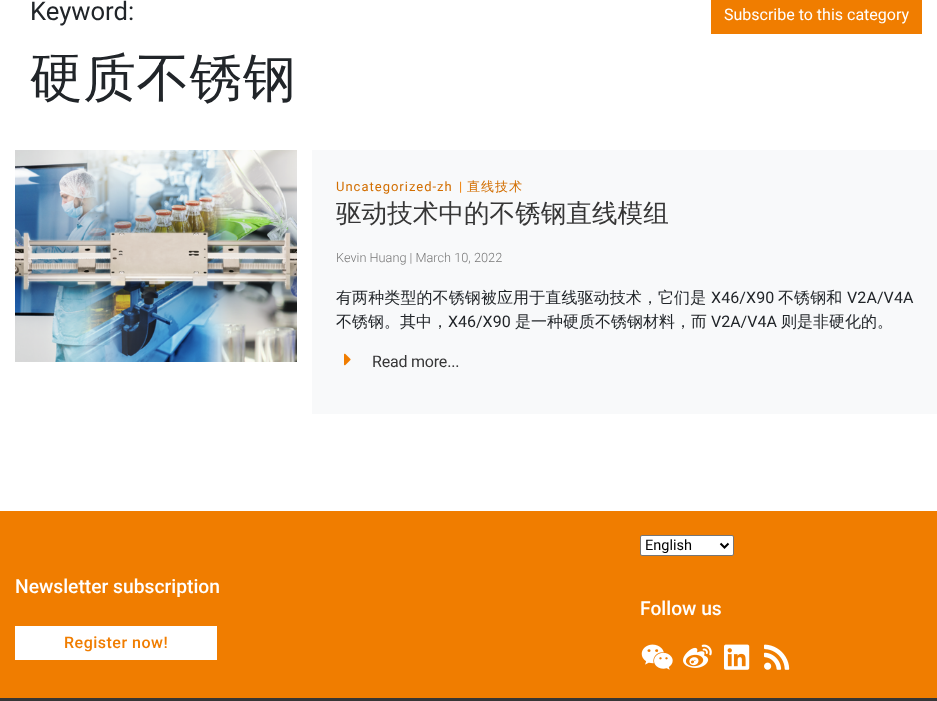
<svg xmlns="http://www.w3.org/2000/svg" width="937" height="701">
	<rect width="100%" height="100%" fill="#FFFFFF" />
	<text x="30" y="20" font-family="Roboto" font-size="25.6" fill="#212529">Keyword:</text>
	<text x="30" y="96" font-family="WenQuanYi Zen Hei" font-size="52.75" font-weight="500" letter-spacing="0.5" fill="#212529">硬质不锈钢</text>
	<rect x="711" y="0" width="211" height="34" fill="#F07D00" />
	<text x="724" y="20" font-family="Roboto" font-size="16" fill="#FFFFFF">Subscribe to this category</text>
	<image x="15" y="150" width="282" height="212" href="assets/img1.png" />
	<rect x="312" y="150" width="625" height="264" fill="#F8F9FA" />
	<text x="336" y="191" font-family="Roboto" font-size="13" letter-spacing="1" fill="#D26E00">Uncategorized-zh</text>
	<text x="459" y="191" font-family="Roboto" font-size="13" letter-spacing="1" fill="#F07D00">|</text>
	<text x="467" y="191" font-family="WenQuanYi Zen Hei" font-size="13" font-weight="500" letter-spacing="1" fill="#D26E00">直线技术</text>
	<text x="336" y="222" font-family="WenQuanYi Zen Hei" font-size="25.6" font-weight="500" fill="#363636">驱动技术中的不锈钢直线模组</text>
	<text x="336" y="262" font-family="Roboto" font-size="12.75" font-weight="300" fill="#787878">Kevin Huang | March 10, 2022</text>
	<text x="336" y="303" font-family="WenQuanYi Zen Hei" font-size="16" font-weight="500" letter-spacing="0.1" fill="#212529">有两种类型的不锈钢被应用于直线驱动技术，它们是</text>
	<text x="711" y="303" font-family="Roboto" font-size="16" letter-spacing="0.1" fill="#212529">X46/X90</text>
	<text x="778" y="303" font-family="WenQuanYi Zen Hei" font-size="16" font-weight="500" letter-spacing="0.1" fill="#212529">不锈钢和</text>
	<text x="847" y="303" font-family="Roboto" font-size="16" letter-spacing="0.1" fill="#212529">V2A/V4A</text>
	<text x="336" y="327" font-family="WenQuanYi Zen Hei" font-size="16" font-weight="500" fill="#212529">不锈钢。其中，</text>
	<text x="448" y="327" font-family="Roboto" font-size="16" fill="#212529">X46/X90</text>
	<text x="515" y="327" font-family="WenQuanYi Zen Hei" font-size="16" font-weight="500" fill="#212529">是一种硬质不锈钢材料，而</text>
	<text x="711" y="327" font-family="Roboto" font-size="16" fill="#212529">V2A/V4A</text>
	<text x="781" y="327" font-family="WenQuanYi Zen Hei" font-size="16" font-weight="500" fill="#212529">则是非硬化的。</text>
	<image x="344" y="353" width="7" height="13" href="assets/img2.png" />
	<text x="372" y="367" font-family="Roboto" font-size="16" letter-spacing="-0.2" fill="#363636">Read more...</text>
	<rect x="0" y="511" width="937" height="187" fill="#F07D00" />
	<text x="15" y="593" font-family="Roboto" font-size="19.25" font-weight="500" fill="#FFFFFF">Newsletter subscription</text>
	<rect x="15" y="626" width="202" height="34" fill="#FFFFFF" />
	<text x="64" y="648" font-family="Roboto" font-size="16" font-weight="500" letter-spacing="0.5" fill="#F07D00">Register now!</text>
	<rect x="640.5" y="535.5" width="93" height="20" rx="1.5" fill="#FFFFFF" stroke="#767676" />
	<path d="M720.5 543.5L724.5 547.5L728.5 543.5" fill="none" stroke="#000000" stroke-width="2" />
	<text x="645" y="550" font-family="Roboto" font-size="14.5" fill="#000000">English</text>
	<text x="640" y="615" font-family="Roboto" font-size="19.25" font-weight="500" fill="#FFFFFF">Follow us</text>
	<image x="641" y="644" width="32" height="26" href="assets/img3.png" />
	<image x="683" y="644" width="29" height="24" href="assets/img4.png" />
	<image x="724" y="644" width="26" height="26" href="assets/img5.png" />
	<image x="764" y="644" width="26" height="26" href="assets/img6.png" />
	<rect x="0" y="698" width="937" height="3" fill="#363636" />
</svg>
